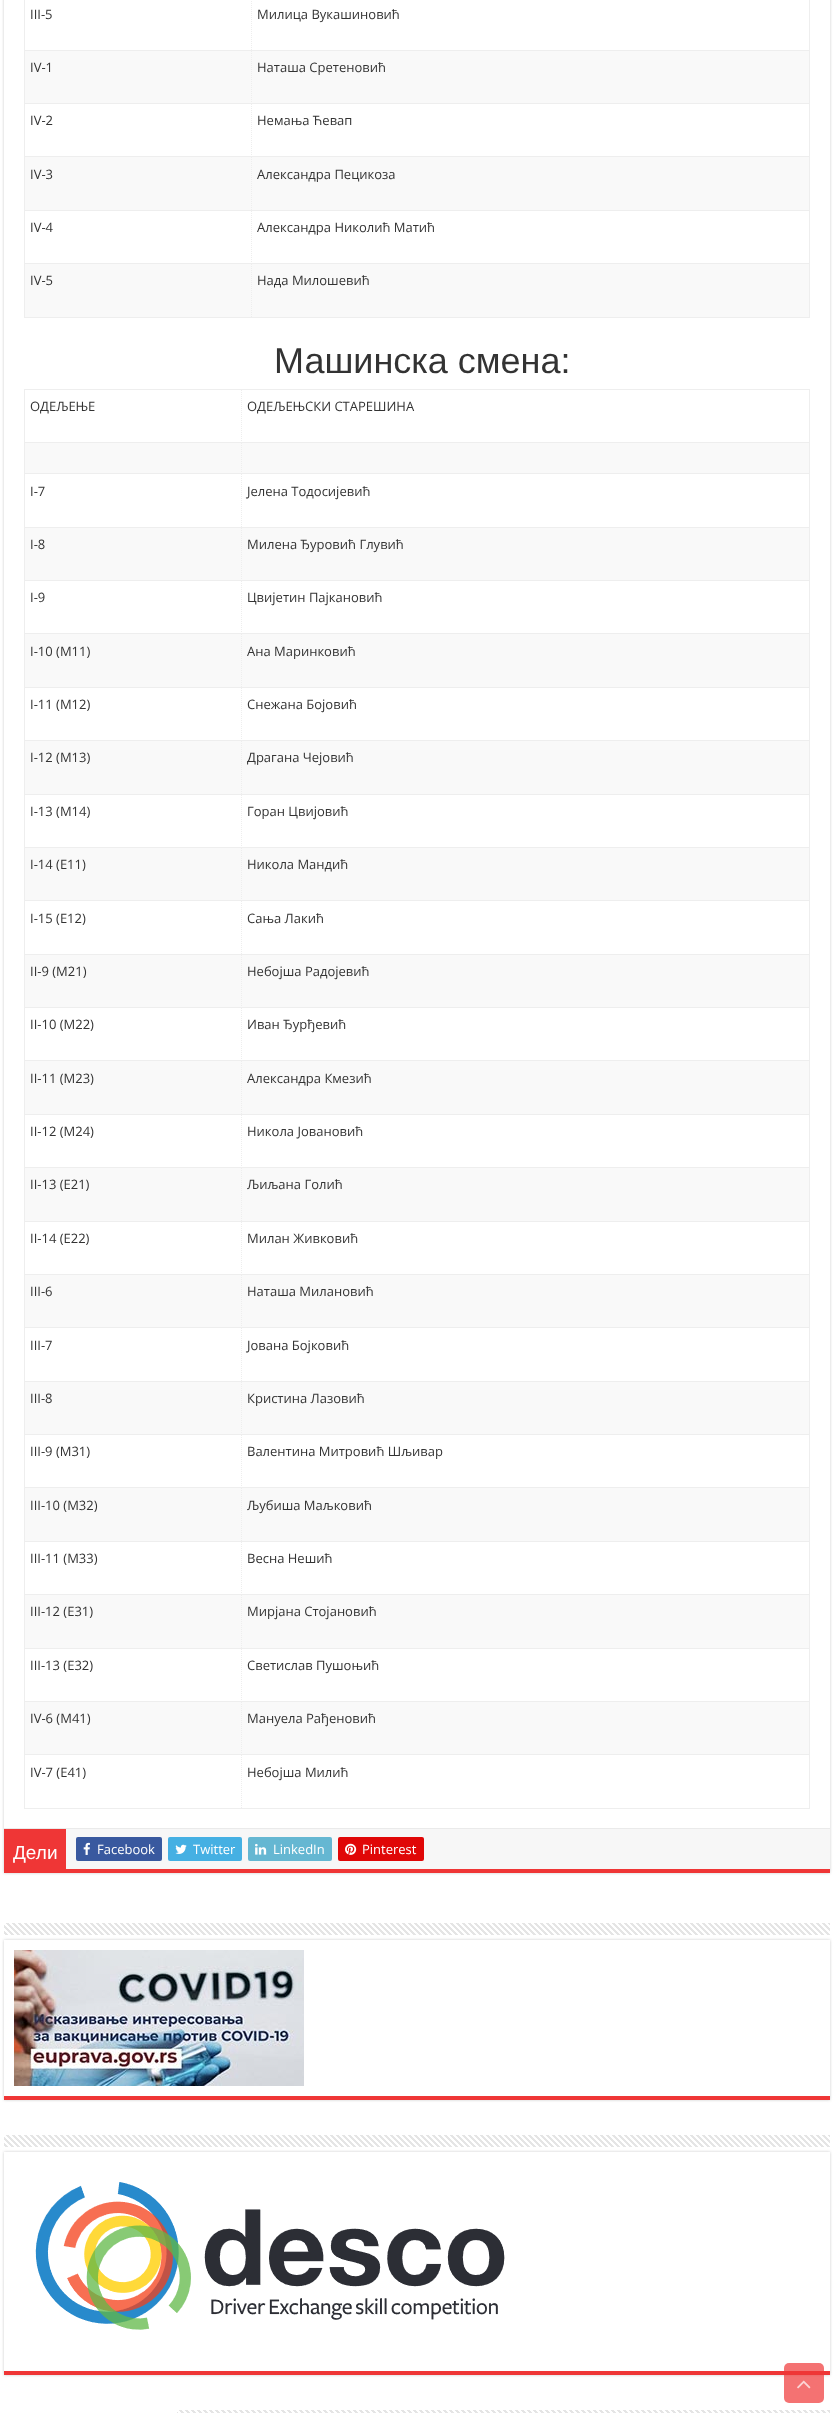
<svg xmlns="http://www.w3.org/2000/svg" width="834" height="2413">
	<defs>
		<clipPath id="clip1"><path d="M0 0H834V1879H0ZM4-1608H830V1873H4Z" clip-rule="evenodd" /></clipPath>
		<clipPath id="clip2"><path d="M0 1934H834V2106H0ZM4 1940H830V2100H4Z" clip-rule="evenodd" /></clipPath>
		<clipPath id="clip3"><path d="M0 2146H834V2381H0ZM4 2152H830V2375H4Z" clip-rule="evenodd" /></clipPath>
	</defs>
	<rect width="100%" height="100%" fill="#FFFFFF" />
	<g clip-path="url(#clip1)">
		<rect x="4" y="-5" width="826" height="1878" fill="#CACACA" filter="blur(1.5px)" />
	</g>
	<rect x="4" y="1869" width="826" height="4" fill="#EF3636" />
	<rect x="24.5" y="-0.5" width="785" height="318" fill="none" stroke="#EEEEEE" />
	<path d="M251.5-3V51" fill="none" stroke="#EEEEEE" stroke-dasharray="1 1" />
	<rect x="25" y="50" width="784" height="1" fill="#EEEEEE" />
	<g font-family="Open Sans" font-size="13" fill="#333333">
		<text x="30" y="19">III-5</text>
		<text x="257" y="19">Милица Вукашиновић</text>
	</g>
	<rect x="25" y="51" width="784" height="52" fill="#F9F9F9" />
	<path d="M251.5 51V104" fill="none" stroke="#EEEEEE" stroke-dasharray="1 1" />
	<rect x="25" y="103" width="784" height="1" fill="#EEEEEE" />
	<g font-family="Open Sans" font-size="13" fill="#333333">
		<text x="30" y="72">IV-1</text>
		<text x="257" y="72">Наташа Сретеновић</text>
	</g>
	<path d="M251.5 104V157" fill="none" stroke="#EEEEEE" stroke-dasharray="1 1" />
	<rect x="25" y="156" width="784" height="1" fill="#EEEEEE" />
	<g font-family="Open Sans" font-size="13" fill="#333333">
		<text x="30" y="125">IV-2</text>
		<text x="257" y="125">Немања Ћевап</text>
	</g>
	<rect x="25" y="157" width="784" height="53" fill="#F9F9F9" />
	<path d="M251.5 157V211" fill="none" stroke="#EEEEEE" stroke-dasharray="1 1" />
	<rect x="25" y="210" width="784" height="1" fill="#EEEEEE" />
	<g font-family="Open Sans" font-size="13" fill="#333333">
		<text x="30" y="179">IV-3</text>
		<text x="257" y="179">Александра Пецикоза</text>
	</g>
	<path d="M251.5 211V264" fill="none" stroke="#EEEEEE" stroke-dasharray="1 1" />
	<rect x="25" y="263" width="784" height="1" fill="#EEEEEE" />
	<g font-family="Open Sans" font-size="13" fill="#333333">
		<text x="30" y="232">IV-4</text>
		<text x="257" y="232">Александра Николић Матић</text>
	</g>
	<rect x="25" y="264" width="784" height="53" fill="#F9F9F9" />
	<path d="M251.5 264V317" fill="none" stroke="#EEEEEE" stroke-dasharray="1 1" />
	<g font-family="Open Sans" font-size="13" fill="#333333">
		<text x="30" y="285">IV-5</text>
		<text x="257" y="285">Нада Милошевић</text>
	</g>
	<text x="274" y="373" font-family="Liberation Sans" font-size="36" fill="#333333">Машинска смена:</text>
	<rect x="24.5" y="389.5" width="785" height="1419" fill="none" stroke="#EEEEEE" />
	<path d="M241.5 390V443" fill="none" stroke="#EEEEEE" stroke-dasharray="1 1" />
	<rect x="25" y="442" width="784" height="1" fill="#EEEEEE" />
	<g font-family="Open Sans" font-size="13" fill="#333333">
		<text x="30" y="411">ОДЕЉЕЊЕ</text>
		<text x="247" y="411">ОДЕЉЕЊСКИ СТАРЕШИНА</text>
	</g>
	<rect x="25" y="443" width="784" height="30" fill="#F9F9F9" />
	<path d="M241.5 443V474" fill="none" stroke="#EEEEEE" stroke-dasharray="1 1" />
	<rect x="25" y="473" width="784" height="1" fill="#EEEEEE" />
	<path d="M241.5 474V528" fill="none" stroke="#EEEEEE" stroke-dasharray="1 1" />
	<rect x="25" y="527" width="784" height="1" fill="#EEEEEE" />
	<g font-family="Open Sans" font-size="13" fill="#333333">
		<text x="30" y="496">I-7</text>
		<text x="247" y="496">Јелена Тодосијевић</text>
	</g>
	<rect x="25" y="528" width="784" height="52" fill="#F9F9F9" />
	<path d="M241.5 528V581" fill="none" stroke="#EEEEEE" stroke-dasharray="1 1" />
	<rect x="25" y="580" width="784" height="1" fill="#EEEEEE" />
	<g font-family="Open Sans" font-size="13" fill="#333333">
		<text x="30" y="549">I-8</text>
		<text x="247" y="549">Милена Ђуровић Глувић</text>
	</g>
	<path d="M241.5 581V634" fill="none" stroke="#EEEEEE" stroke-dasharray="1 1" />
	<rect x="25" y="633" width="784" height="1" fill="#EEEEEE" />
	<g font-family="Open Sans" font-size="13" fill="#333333">
		<text x="30" y="602">I-9</text>
		<text x="247" y="602">Цвијетин Пајкановић</text>
	</g>
	<rect x="25" y="634" width="784" height="53" fill="#F9F9F9" />
	<path d="M241.5 634V688" fill="none" stroke="#EEEEEE" stroke-dasharray="1 1" />
	<rect x="25" y="687" width="784" height="1" fill="#EEEEEE" />
	<g font-family="Open Sans" font-size="13" fill="#333333">
		<text x="30" y="656">I-10 (М11)</text>
		<text x="247" y="656">Ана Маринковић</text>
	</g>
	<path d="M241.5 688V741" fill="none" stroke="#EEEEEE" stroke-dasharray="1 1" />
	<rect x="25" y="740" width="784" height="1" fill="#EEEEEE" />
	<g font-family="Open Sans" font-size="13" fill="#333333">
		<text x="30" y="709">I-11 (М12)</text>
		<text x="247" y="709">Снежана Бојовић</text>
	</g>
	<rect x="25" y="741" width="784" height="53" fill="#F9F9F9" />
	<path d="M241.5 741V795" fill="none" stroke="#EEEEEE" stroke-dasharray="1 1" />
	<rect x="25" y="794" width="784" height="1" fill="#EEEEEE" />
	<g font-family="Open Sans" font-size="13" fill="#333333">
		<text x="30" y="762">I-12 (М13)</text>
		<text x="247" y="762">Драгана Чејовић</text>
	</g>
	<path d="M241.5 795V848" fill="none" stroke="#EEEEEE" stroke-dasharray="1 1" />
	<rect x="25" y="847" width="784" height="1" fill="#EEEEEE" />
	<g font-family="Open Sans" font-size="13" fill="#333333">
		<text x="30" y="816">I-13 (М14)</text>
		<text x="247" y="816">Горан Цвијовић</text>
	</g>
	<rect x="25" y="848" width="784" height="52" fill="#F9F9F9" />
	<path d="M241.5 848V901" fill="none" stroke="#EEEEEE" stroke-dasharray="1 1" />
	<rect x="25" y="900" width="784" height="1" fill="#EEEEEE" />
	<g font-family="Open Sans" font-size="13" fill="#333333">
		<text x="30" y="869">I-14 (Е11)</text>
		<text x="247" y="869">Никола Мандић</text>
	</g>
	<path d="M241.5 901V955" fill="none" stroke="#EEEEEE" stroke-dasharray="1 1" />
	<rect x="25" y="954" width="784" height="1" fill="#EEEEEE" />
	<g font-family="Open Sans" font-size="13" fill="#333333">
		<text x="30" y="923">I-15 (Е12)</text>
		<text x="247" y="923">Сања Лакић</text>
	</g>
	<rect x="25" y="955" width="784" height="52" fill="#F9F9F9" />
	<path d="M241.5 955V1008" fill="none" stroke="#EEEEEE" stroke-dasharray="1 1" />
	<rect x="25" y="1007" width="784" height="1" fill="#EEEEEE" />
	<g font-family="Open Sans" font-size="13" fill="#333333">
		<text x="30" y="976">II-9 (М21)</text>
		<text x="247" y="976">Небојша Радојевић</text>
	</g>
	<path d="M241.5 1008V1061" fill="none" stroke="#EEEEEE" stroke-dasharray="1 1" />
	<rect x="25" y="1060" width="784" height="1" fill="#EEEEEE" />
	<g font-family="Open Sans" font-size="13" fill="#333333">
		<text x="30" y="1029">II-10 (М22)</text>
		<text x="247" y="1029">Иван Ђурђевић</text>
	</g>
	<rect x="25" y="1061" width="784" height="53" fill="#F9F9F9" />
	<path d="M241.5 1061V1115" fill="none" stroke="#EEEEEE" stroke-dasharray="1 1" />
	<rect x="25" y="1114" width="784" height="1" fill="#EEEEEE" />
	<g font-family="Open Sans" font-size="13" fill="#333333">
		<text x="30" y="1083">II-11 (М23)</text>
		<text x="247" y="1083">Александра Кмезић</text>
	</g>
	<path d="M241.5 1115V1168" fill="none" stroke="#EEEEEE" stroke-dasharray="1 1" />
	<rect x="25" y="1167" width="784" height="1" fill="#EEEEEE" />
	<g font-family="Open Sans" font-size="13" fill="#333333">
		<text x="30" y="1136">II-12 (М24)</text>
		<text x="247" y="1136">Никола Јовановић</text>
	</g>
	<rect x="25" y="1168" width="784" height="53" fill="#F9F9F9" />
	<path d="M241.5 1168V1222" fill="none" stroke="#EEEEEE" stroke-dasharray="1 1" />
	<rect x="25" y="1221" width="784" height="1" fill="#EEEEEE" />
	<g font-family="Open Sans" font-size="13" fill="#333333">
		<text x="30" y="1189">II-13 (Е21)</text>
		<text x="247" y="1189">Љиљана Голић</text>
	</g>
	<path d="M241.5 1222V1275" fill="none" stroke="#EEEEEE" stroke-dasharray="1 1" />
	<rect x="25" y="1274" width="784" height="1" fill="#EEEEEE" />
	<g font-family="Open Sans" font-size="13" fill="#333333">
		<text x="30" y="1243">II-14 (Е22)</text>
		<text x="247" y="1243">Милан Живковић</text>
	</g>
	<rect x="25" y="1275" width="784" height="52" fill="#F9F9F9" />
	<path d="M241.5 1275V1328" fill="none" stroke="#EEEEEE" stroke-dasharray="1 1" />
	<rect x="25" y="1327" width="784" height="1" fill="#EEEEEE" />
	<g font-family="Open Sans" font-size="13" fill="#333333">
		<text x="30" y="1296">III-6</text>
		<text x="247" y="1296">Наташа Милановић</text>
	</g>
	<path d="M241.5 1328V1382" fill="none" stroke="#EEEEEE" stroke-dasharray="1 1" />
	<rect x="25" y="1381" width="784" height="1" fill="#EEEEEE" />
	<g font-family="Open Sans" font-size="13" fill="#333333">
		<text x="30" y="1350">III-7</text>
		<text x="247" y="1350">Јована Бојковић</text>
	</g>
	<rect x="25" y="1382" width="784" height="52" fill="#F9F9F9" />
	<path d="M241.5 1382V1435" fill="none" stroke="#EEEEEE" stroke-dasharray="1 1" />
	<rect x="25" y="1434" width="784" height="1" fill="#EEEEEE" />
	<g font-family="Open Sans" font-size="13" fill="#333333">
		<text x="30" y="1403">III-8</text>
		<text x="247" y="1403">Кристина Лазовић</text>
	</g>
	<path d="M241.5 1435V1488" fill="none" stroke="#EEEEEE" stroke-dasharray="1 1" />
	<rect x="25" y="1487" width="784" height="1" fill="#EEEEEE" />
	<g font-family="Open Sans" font-size="13" fill="#333333">
		<text x="30" y="1456">III-9 (М31)</text>
		<text x="247" y="1456">Валентина Митровић Шљивар</text>
	</g>
	<rect x="25" y="1488" width="784" height="53" fill="#F9F9F9" />
	<path d="M241.5 1488V1542" fill="none" stroke="#EEEEEE" stroke-dasharray="1 1" />
	<rect x="25" y="1541" width="784" height="1" fill="#EEEEEE" />
	<g font-family="Open Sans" font-size="13" fill="#333333">
		<text x="30" y="1510">III-10 (М32)</text>
		<text x="247" y="1510">Љубиша Маљковић</text>
	</g>
	<path d="M241.5 1542V1595" fill="none" stroke="#EEEEEE" stroke-dasharray="1 1" />
	<rect x="25" y="1594" width="784" height="1" fill="#EEEEEE" />
	<g font-family="Open Sans" font-size="13" fill="#333333">
		<text x="30" y="1563">III-11 (М33)</text>
		<text x="247" y="1563">Весна Нешић</text>
	</g>
	<rect x="25" y="1595" width="784" height="53" fill="#F9F9F9" />
	<path d="M241.5 1595V1649" fill="none" stroke="#EEEEEE" stroke-dasharray="1 1" />
	<rect x="25" y="1648" width="784" height="1" fill="#EEEEEE" />
	<g font-family="Open Sans" font-size="13" fill="#333333">
		<text x="30" y="1616">III-12 (Е31)</text>
		<text x="247" y="1616">Мирјана Стојановић</text>
	</g>
	<path d="M241.5 1649V1702" fill="none" stroke="#EEEEEE" stroke-dasharray="1 1" />
	<rect x="25" y="1701" width="784" height="1" fill="#EEEEEE" />
	<g font-family="Open Sans" font-size="13" fill="#333333">
		<text x="30" y="1670">III-13 (Е32)</text>
		<text x="247" y="1670">Светислав Пушоњић</text>
	</g>
	<rect x="25" y="1702" width="784" height="52" fill="#F9F9F9" />
	<path d="M241.5 1702V1755" fill="none" stroke="#EEEEEE" stroke-dasharray="1 1" />
	<rect x="25" y="1754" width="784" height="1" fill="#EEEEEE" />
	<g font-family="Open Sans" font-size="13" fill="#333333">
		<text x="30" y="1723">IV-6 (М41)</text>
		<text x="247" y="1723">Мануела Рађеновић</text>
	</g>
	<path d="M241.5 1755V1808" fill="none" stroke="#EEEEEE" stroke-dasharray="1 1" />
	<g font-family="Open Sans" font-size="13" fill="#333333">
		<text x="30" y="1777">IV-7 (Е41)</text>
		<text x="247" y="1777">Небојша Милић</text>
	</g>
	<rect x="66" y="1829" width="764" height="40" fill="#F7F7F7" />
	<rect x="4" y="1828" width="826" height="1" fill="#EAEAEA" />
	<rect x="4" y="1829" width="62" height="40" fill="#EF3636" />
	<text x="13" y="1859" font-family="Liberation Sans" font-size="19" fill="#FFFFFF">Дели</text>
	<rect x="76" y="1837" width="86" height="24" rx="2" fill="#39599F" />
	<image x="83" y="1842" width="7" height="13" href="assets/img1.png" />
	<text x="97" y="1854" font-family="Open Sans" font-size="13" fill="#FFFFFF">Facebook</text>
	<rect x="168" y="1837" width="74" height="24" rx="2" fill="#45B0E3" />
	<image x="175" y="1844" width="12" height="10" href="assets/img2.png" />
	<text x="193" y="1854" font-family="Open Sans" font-size="13" fill="#FFFFFF">Twitter</text>
	<rect x="248" y="1837" width="84" height="24" rx="2" fill="#65B7D2" />
	<image x="255" y="1843" width="12" height="12" href="assets/img3.png" />
	<text x="273" y="1854" font-family="Open Sans" font-size="13" fill="#FFFFFF">LinkedIn</text>
	<rect x="338" y="1837" width="86" height="24" rx="2" fill="#E00707" />
	<image x="345" y="1843" width="12" height="12" href="assets/img4.png" />
	<text x="362" y="1854" font-family="Open Sans" font-size="13" fill="#FFFFFF">Pinterest</text>
	<g clip-path="url(#clip2)">
		<rect x="4" y="1940" width="826" height="160" fill="#CACACA" filter="blur(1.5px)" />
	</g>
	<image x="4" y="1923" width="826" height="12" href="assets/img5.png" />
	<rect x="4" y="2096" width="826" height="4" fill="#EF3636" />
	<image x="14" y="1950" width="290" height="136" href="assets/img6.png" />
	<g clip-path="url(#clip3)">
		<rect x="4" y="2152" width="826" height="223" fill="#CACACA" filter="blur(1.5px)" />
	</g>
	<image x="4" y="2135" width="826" height="12" href="assets/img5.png" />
	<rect x="4" y="2371" width="826" height="4" fill="#EF3636" />
	<image x="35" y="2182" width="470" height="148" href="assets/img7.png" />
	<image x="177" y="2410" width="653" height="3" href="assets/img8.png" />
	<rect x="784" y="2363" width="40" height="40" rx="5" fill="#EF3636" fill-opacity="0.7" />
	<image x="797" y="2380" width="14" height="9" href="assets/img9.png" />
</svg>
